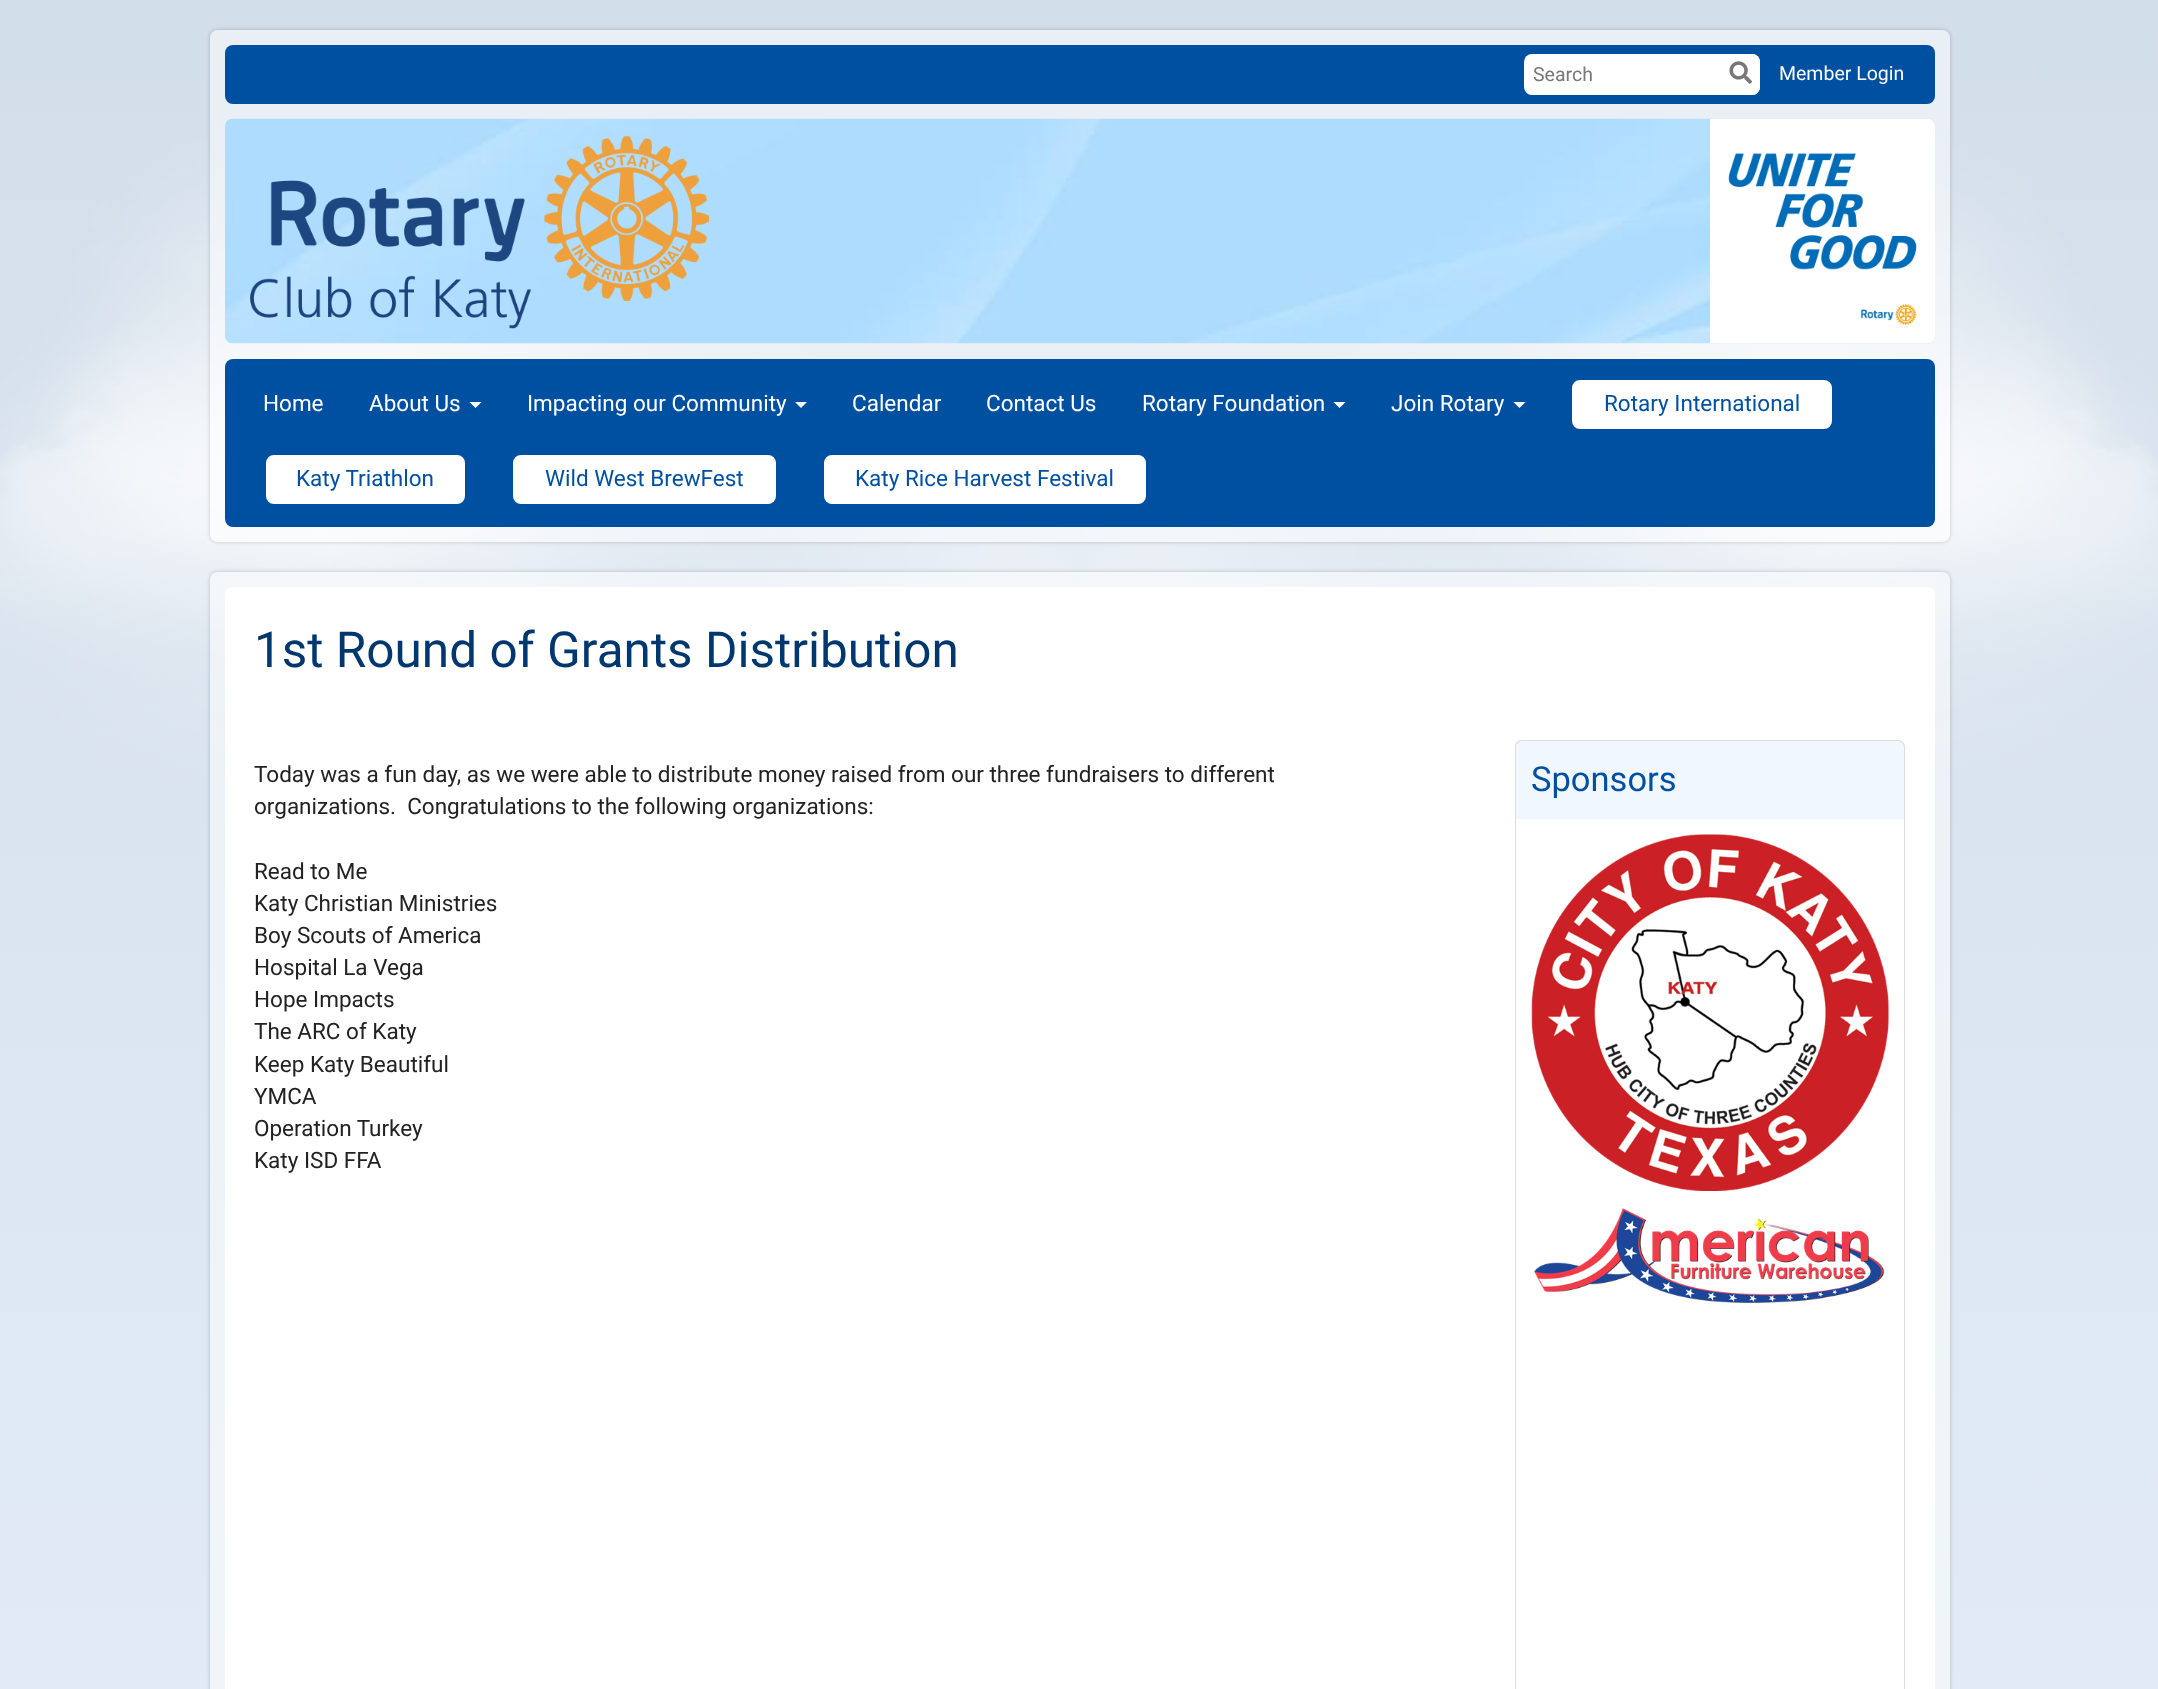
<svg xmlns="http://www.w3.org/2000/svg" width="2158" height="1689">
	<defs>
		<clipPath id="clip1"><path d="M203 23H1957V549H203ZM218 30H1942C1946.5 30 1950 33.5 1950 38V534C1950 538.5 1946.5 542 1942 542H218C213.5 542 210 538.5 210 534V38C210 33.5 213.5 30 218 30Z" clip-rule="evenodd" /></clipPath>
		<clipPath id="clip2"><path d="M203 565H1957V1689H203ZM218 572H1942C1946.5 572 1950 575.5 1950 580V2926C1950 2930.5 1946.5 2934 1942 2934H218C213.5 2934 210 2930.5 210 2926V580C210 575.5 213.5 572 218 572Z" clip-rule="evenodd" /></clipPath>
	</defs>
	<rect width="100%" height="100%" fill="#FFFFFF" />
	<image x="0" y="0" width="2158" height="1689" href="assets/img1.png" />
	<g clip-path="url(#clip1)">
		<rect x="210" y="30" width="1740" height="512" rx="8" fill="#000000" fill-opacity="0.2" filter="blur(2px)" />
	</g>
	<rect x="210" y="30" width="1740" height="512" rx="8" fill="#FFFFFF" fill-opacity="0.5" />
	<rect x="225" y="45" width="1710" height="59" rx="8" fill="#0050A2" />
	<rect x="1524" y="54" width="236" height="41" rx="8" fill="#FFFFFF" />
	<text x="1533" y="81" font-family="Roboto" font-size="19.5" fill="#777777">Search</text>
	<rect x="1722" y="54" width="38" height="41" rx="8" fill="#FFFFFF" />
	<image x="1729" y="61" width="23" height="23" href="assets/img2.png" />
	<text x="1779" y="80" font-family="Roboto" font-size="19.5" fill="#FFFFFF">Member Login</text>
	<image x="225" y="118" width="1710" height="226" href="assets/img3.png" />
	<image x="250" y="136" width="459" height="193" href="assets/img4.png" />
	<image x="1710" y="118" width="225" height="226" href="assets/img5.png" />
	<rect x="225" y="359" width="1710" height="168" rx="8" fill="#0050A2" />
	<g font-family="Roboto" font-size="22.5" fill="#FFFFFF">
		<text x="263" y="411">Home</text>
		<text x="369" y="411">About Us</text>
	</g>
	<path d="M469.5 402H481.5L475.5 408Z" fill="#FFFFFF" />
	<text x="527" y="411" font-family="Roboto" font-size="22.5" fill="#FFFFFF">Impacting our Community</text>
	<path d="M795 402H807L801 408Z" fill="#FFFFFF" />
	<g font-family="Roboto" font-size="22.5" fill="#FFFFFF">
		<text x="852" y="411">Calendar</text>
		<text x="986" y="411">Contact Us</text>
		<text x="1142" y="411">Rotary Foundation</text>
	</g>
	<path d="M1333.5 402H1345.5L1339.5 408Z" fill="#FFFFFF" />
	<text x="1391" y="411" font-family="Roboto" font-size="22.5" fill="#FFFFFF">Join Rotary</text>
	<path d="M1513.5 402H1525.5L1519.5 408Z" fill="#FFFFFF" />
	<rect x="1573" y="381" width="258" height="47" rx="7" fill="#FFFFFF" stroke="#FFFFFF" stroke-width="2" />
	<text x="1604" y="411" font-family="Roboto" font-size="22.5" fill="#0050A2">Rotary International</text>
	<rect x="267" y="456" width="197" height="47" rx="7" fill="#FFFFFF" stroke="#FFFFFF" stroke-width="2" />
	<text x="296" y="486" font-family="Roboto" font-size="22.5" fill="#0050A2">Katy Triathlon</text>
	<rect x="514" y="456" width="261" height="47" rx="7" fill="#FFFFFF" stroke="#FFFFFF" stroke-width="2" />
	<text x="545" y="486" font-family="Roboto" font-size="22.5" fill="#0050A2">Wild West BrewFest</text>
	<rect x="825" y="456" width="320" height="47" rx="7" fill="#FFFFFF" stroke="#FFFFFF" stroke-width="2" />
	<text x="855" y="486" font-family="Roboto" font-size="22.5" fill="#0050A2">Katy Rice Harvest Festival</text>
	<g clip-path="url(#clip2)">
		<rect x="210" y="572" width="1740" height="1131" rx="8" fill="#000000" fill-opacity="0.2" filter="blur(2px)" />
	</g>
	<rect x="210" y="572" width="1740" height="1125" rx="8" fill="#FFFFFF" fill-opacity="0.5" />
	<rect x="225" y="587" width="1710" height="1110" rx="8" fill="#FFFFFF" />
	<text x="254" y="667" font-family="Roboto" font-size="49.5" fill="#00376F">1st Round of Grants Distribution</text>
	<g font-family="Roboto" font-size="22.5" fill="#222222">
		<text x="254" y="782">Today was a fun day, as we were able to distribute money raised from our three fundraisers to different</text>
		<text x="254" y="814" xml:space="preserve">organizations.  Congratulations to the following organizations:</text>
		<text x="254" y="879">Read to Me</text>
		<text x="254" y="911">Katy Christian Ministries</text>
		<text x="254" y="943">Boy Scouts of America</text>
		<text x="254" y="975">Hospital La Vega</text>
		<text x="254" y="1007">Hope Impacts</text>
		<text x="254" y="1039">The ARC of Katy</text>
		<text x="254" y="1072">Keep Katy Beautiful</text>
		<text x="254" y="1104">YMCA</text>
		<text x="254" y="1136">Operation Turkey</text>
		<text x="254" y="1168">Katy ISD FFA</text>
	</g>
	<path d="M1523 740H1897C1901.5 740 1905 743.5 1905 748V819H1515V748C1515 743.5 1518.5 740 1523 740Z" fill="#F0F7FF" />
	<path d="M1522 740H1898C1902 740 1905 743 1905 747V819H1515V747C1515 743 1518 740 1522 740ZM1522 741H1898C1901 741 1904 744 1904 747V819H1516V747C1516 744 1519 741 1522 741Z" fill="#DDDDDD" fill-rule="evenodd" />
	<text x="1531" y="791" font-family="Roboto" font-size="34.5" fill="#0050A2">Sponsors</text>
	<path d="M1515 819H1905V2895C1905 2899 1902 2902 1898 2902H1522C1518 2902 1515 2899 1515 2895ZM1516 819H1904V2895C1904 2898 1901 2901 1898 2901H1522C1519 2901 1516 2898 1516 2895Z" fill="#DDDDDD" fill-rule="evenodd" />
	<image x="1531" y="834" width="358" height="357" href="assets/img6.png" />
	<image x="1534" y="1208" width="351" height="95" href="assets/img7.png" />
</svg>
